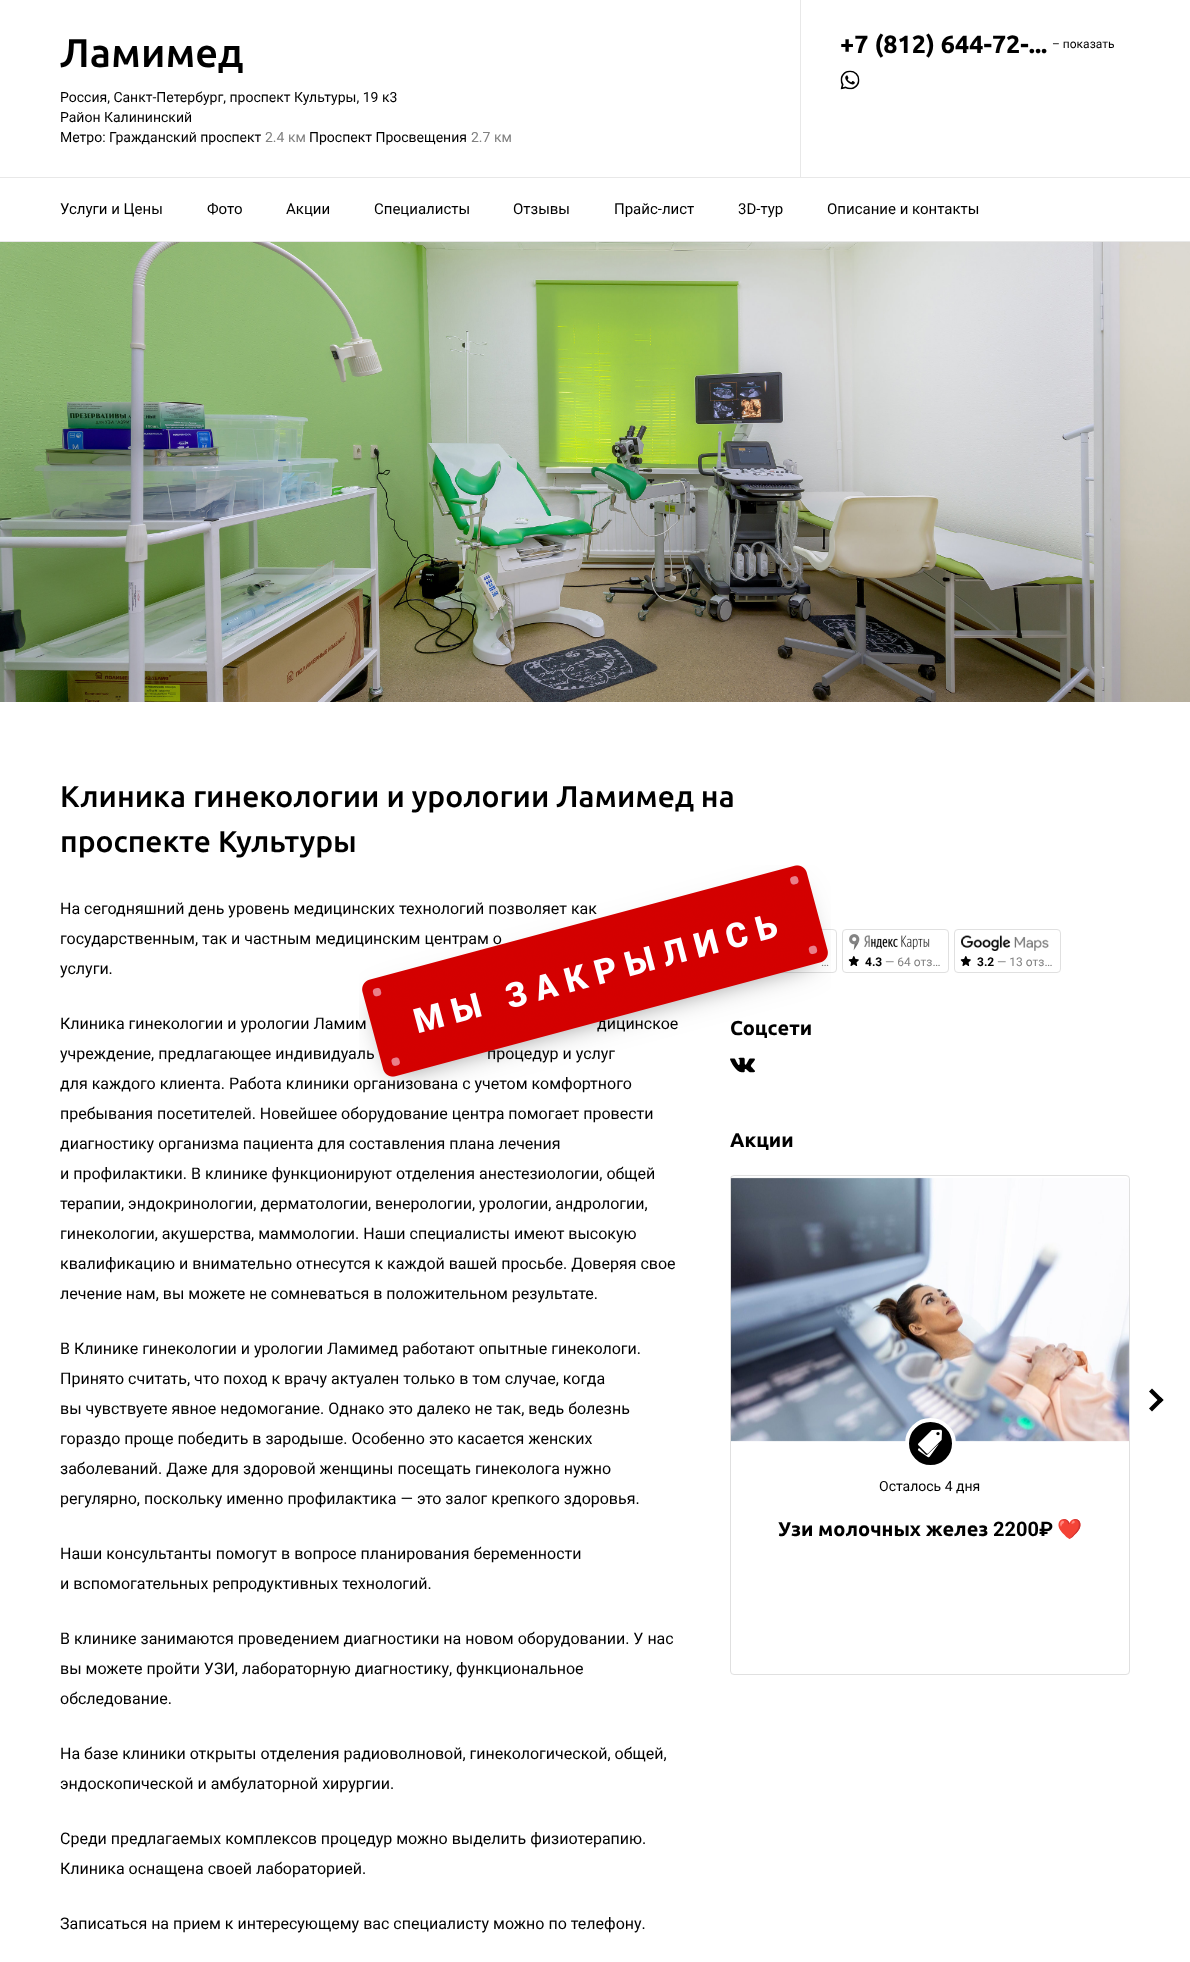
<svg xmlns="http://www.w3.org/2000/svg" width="1190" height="1962">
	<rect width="100%" height="100%" fill="#FFFFFF" />
	<rect x="800" y="0" width="1" height="177" fill="#E8E8E8" />
	<text x="60" y="67" font-family="Ubuntu" font-size="40" font-weight="500" fill="#000000">Ламимед</text>
	<g font-family="Roboto" font-size="14" fill="#000000">
		<text x="60" y="102">Россия, Санкт-Петербург, проспект Культуры, 19 к3</text>
		<text x="60" y="122">Район Калининский</text>
		<text x="60" y="142">Метро: Гражданский проспект</text>
	</g>
	<text x="265" y="142" font-family="Roboto" font-size="14" fill="#808080">2.4 км</text>
	<text x="309" y="142" font-family="Roboto" font-size="14" fill="#000000">Проспект Просвещения</text>
	<text x="471" y="142" font-family="Roboto" font-size="14" fill="#808080">2.7 км</text>
	<text x="840" y="53" font-family="Ubuntu" font-size="25" font-weight="700" fill="#000000">+7 (812) 644-72-...</text>
	<text x="1052" y="48" font-family="Roboto" font-size="12" fill="#000000">– показать</text>
	<image x="840" y="70" width="20" height="20" href="assets/img1.png" />
	<rect x="0" y="177" width="1190" height="1" fill="#E8E8E8" />
	<rect x="0" y="241" width="1190" height="1" fill="#E8E8E8" />
	<g font-family="Roboto" font-size="15" fill="#000000">
		<text x="60" y="214">Услуги и Цены</text>
		<text x="207" y="214">Фото</text>
		<text x="286" y="214">Акции</text>
		<text x="374" y="214">Специалисты</text>
		<text x="513" y="214">Отзывы</text>
		<text x="614" y="214">Прайс-лист</text>
		<text x="738" y="214">3D-тур</text>
		<text x="827" y="214">Описание и контакты</text>
	</g>
	<image x="0" y="242" width="1190" height="460" href="assets/img2.png" />
	<g font-family="Ubuntu" font-size="30" font-weight="500" fill="#000000">
		<text x="60" y="807">Клиника гинекологии и урологии Ламимед на</text>
		<text x="60" y="852">проспекте Культуры</text>
	</g>
	<g font-family="Roboto" font-size="16" fill="#000000">
		<text x="60" y="914">На сегодняшний день уровень медицинских технологий позволяет как</text>
		<text x="60" y="944">государственным, так и частным медицинским центрам о</text>
		<text x="60" y="974">услуги.</text>
		<text x="60" y="1029">Клиника гинекологии и урологии Ламим</text>
		<text x="597" y="1029">дицинское</text>
		<text x="60" y="1059">учреждение, предлагающее индивидуаль</text>
		<text x="487" y="1059">процедур и услуг</text>
		<text x="60" y="1089">для каждого клиента. Работа клиники организована с учетом комфортного</text>
		<text x="60" y="1119">пребывания посетителей. Новейшее оборудование центра помогает провести</text>
		<text x="60" y="1149">диагностику организма пациента для составления плана лечения</text>
		<text x="60" y="1179">и профилактики. В клинике функционируют отделения анестезиологии, общей</text>
		<text x="60" y="1209">терапии, эндокринологии, дерматологии, венерологии, урологии, андрологии,</text>
		<text x="60" y="1239">гинекологии, акушерства, маммологии. Наши специалисты имеют высокую</text>
		<text x="60" y="1269">квалификацию и внимательно отнесутся к каждой вашей просьбе. Доверяя свое</text>
		<text x="60" y="1299">лечение нам, вы можете не сомневаться в положительном результате.</text>
		<text x="60" y="1354">В Клинике гинекологии и урологии Ламимед работают опытные гинекологи.</text>
		<text x="60" y="1384">Принято считать, что поход к врачу актуален только в том случае, когда</text>
		<text x="60" y="1414">вы чувствуете явное недомогание. Однако это далеко не так, ведь болезнь</text>
		<text x="60" y="1444">гораздо проще победить в зародыше. Особенно это касается женских</text>
		<text x="60" y="1474">заболеваний. Даже для здоровой женщины посещать гинеколога нужно</text>
		<text x="60" y="1504">регулярно, поскольку именно профилактика — это залог крепкого здоровья.</text>
		<text x="60" y="1559">Наши консультанты помогут в вопросе планирования беременности</text>
		<text x="60" y="1589">и вспомогательных репродуктивных технологий.</text>
		<text x="60" y="1644">В клинике занимаются проведением диагностики на новом оборудовании. У нас</text>
		<text x="60" y="1674">вы можете пройти УЗИ, лабораторную диагностику, функциональное</text>
		<text x="60" y="1704">обследование.</text>
		<text x="60" y="1759">На базе клиники открыты отделения радиоволновой, гинекологической, общей,</text>
		<text x="60" y="1789">эндоскопической и амбулаторной хирургии.</text>
		<text x="60" y="1844">Среди предлагаемых комплексов процедур можно выделить физиотерапию.</text>
		<text x="60" y="1874">Клиника оснащена своей лабораторией.</text>
		<text x="60" y="1929">Записаться на прием к интересующему вас специалисту можно по телефону.</text>
	</g>
	<rect x="730.5" y="929.5" width="106" height="43" rx="3.5" fill="none" stroke="#E0E0E0" />
	<text x="821" y="966" font-family="Roboto" font-size="12" fill="#808080">…</text>
	<rect x="842.5" y="929.5" width="106" height="43" rx="3.5" fill="none" stroke="#E0E0E0" />
	<image x="849" y="934" width="81" height="17" href="assets/img3.png" />
	<image x="848" y="956" width="11" height="10" href="assets/img4.png" />
	<text x="865" y="966" font-family="Roboto" font-size="12" font-weight="700" fill="#000000">4.3</text>
	<text x="885" y="966" font-family="Roboto" font-size="12" fill="#808080">— 64 отз…</text>
	<rect x="954.5" y="929.5" width="106" height="43" rx="3.5" fill="none" stroke="#E0E0E0" />
	<image x="961" y="935" width="88" height="16" href="assets/img5.png" />
	<image x="960" y="956" width="11" height="10" href="assets/img4.png" />
	<text x="977" y="966" font-family="Roboto" font-size="12" font-weight="700" fill="#000000">3.2</text>
	<text x="997" y="966" font-family="Roboto" font-size="12" fill="#808080">— 13 отз…</text>
	<text x="730" y="1035" font-family="Ubuntu" font-size="20" font-weight="700" fill="#000000">Соцсети</text>
	<image x="730" y="1057" width="25" height="16" href="assets/img6.png" />
	<text x="730" y="1147" font-family="Ubuntu" font-size="20" font-weight="700" fill="#000000">Акции</text>
	<path d="M1163.5 1400L1152 1411.5L1149 1408.5L1160.5 1397Z" fill="#000000" />
	<path d="M1163.5 1400L1160.5 1403L1149 1391.5L1152 1388.5Z" fill="#000000" />
	<rect x="730.5" y="1175.5" width="399" height="499" rx="3.5" fill="none" stroke="#E0E0E0" />
	<image x="731" y="1177" width="398" height="265" href="assets/img7.png" />
	<circle cx="930.5" cy="1443.5" r="23.5" fill="#000000" stroke="#FFFFFF" stroke-width="4" />
	<image x="918" y="1429" width="24" height="29" href="assets/img8.png" />
	<text x="879" y="1491" font-family="Roboto" font-size="14" fill="#000000">Осталось 4 дня</text>
	<text x="778" y="1536" font-family="Ubuntu" font-size="20" font-weight="700" fill="#000000">Узи молочных желез</text>
	<text x="993" y="1536" font-family="Roboto" font-size="20" font-weight="700" fill="#000000">2200₽</text>
	<text x="1057" y="1536" font-family="Noto Color Emoji" font-size="20" font-weight="700" fill="#000000">❤️</text>
	<image x="359" y="865" width="472" height="225" href="assets/img9.png" />
</svg>
